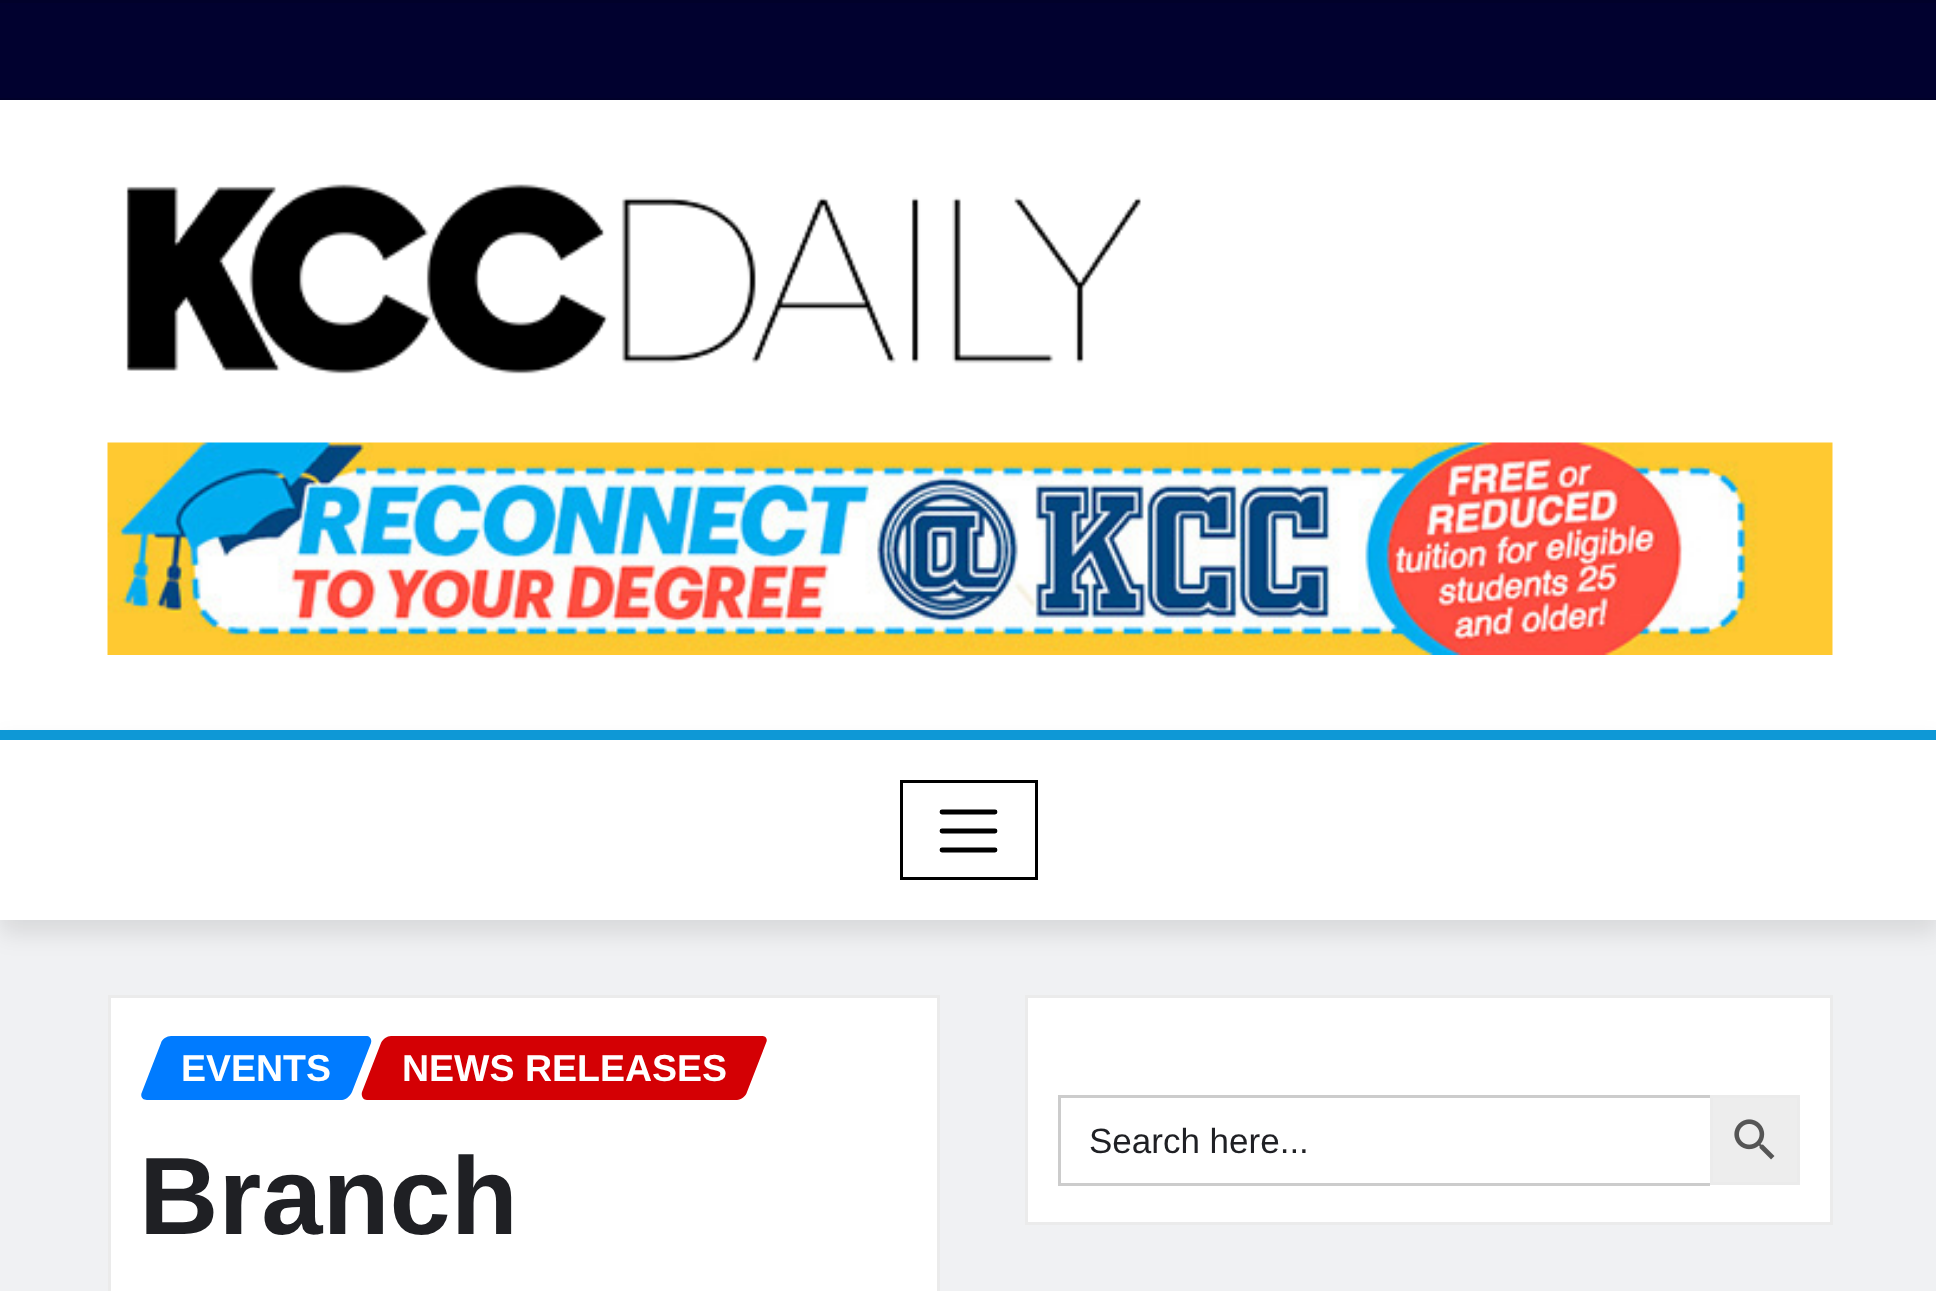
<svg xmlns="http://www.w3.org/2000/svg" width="1936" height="1291">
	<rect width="100%" height="100%" fill="#F0F1F3" />
	<rect x="0" y="3" width="1936" height="95" fill="#01012F" />
	<rect x="0" y="98" width="1936" height="2" fill="#01012A" />
	<rect x="0" y="0" width="1936" height="3" fill="#01012A" />
	<rect x="0" y="100" width="1936" height="630" fill="#FFFFFF" />
	<image x="126" y="184" width="1015" height="190" href="assets/img1.png" />
	<image x="107" y="442" width="1726" height="213" href="assets/img2.png" />
	<rect x="0" y="743" width="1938" height="190" fill="#000000" fill-opacity="0.1" filter="blur(12.5px)" />
	<rect x="0" y="740" width="1936" height="180" fill="#FFFFFF" />
	<rect x="0" y="730" width="1936" height="10" fill="#0E98D6" />
	<rect x="901.5" y="781.5" width="135" height="97" fill="none" stroke="#000000" stroke-width="3" />
	<path d="M942 812H995M942 831H995M942 850H995" fill="none" stroke="#000000" stroke-width="4.8" stroke-linecap="round" />
	<rect x="109.5" y="996.5" width="829" height="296" fill="#FFFFFF" stroke="#EBEBEB" stroke-width="3" />
	<path d="M171 1036H366C370 1036 372 1039 371 1043L352 1092C350 1096 346 1100 342 1100H147C142 1100 140 1096 142 1092L161 1043C162 1039 167 1036 171 1036Z" fill="#007BFF" />
	<text x="181" y="1081" font-family="Liberation Sans" font-size="37.5" font-weight="700" fill="#FFFFFF">EVENTS</text>
	<path d="M391 1036H762C766 1036 768 1039 766 1043L747 1092C746 1096 741 1100 737 1100H367C363 1100 361 1096 362 1092L381 1043C383 1039 387 1036 391 1036Z" fill="#D40004" />
	<text x="402" y="1081" font-family="Liberation Sans" font-size="37.5" font-weight="700" fill="#FFFFFF">NEWS RELEASES</text>
	<text x="139" y="1234" font-family="Liberation Sans" font-size="110" font-weight="700" fill="#1F2024">Branch</text>
	<rect x="1026.5" y="996.5" width="805" height="227" fill="#FFFFFF" stroke="#EBEBEB" stroke-width="3" />
	<rect x="1058" y="1095" width="652" height="3" fill="#CCCCCC" />
	<rect x="1058" y="1183" width="652" height="3" fill="#CCCCCC" />
	<rect x="1058" y="1095" width="3" height="90" fill="#CCCCCC" />
	<text x="1089" y="1153" font-family="Liberation Sans" font-size="35" fill="#1F2024">Search here...</text>
	<rect x="1711.5" y="1096.5" width="87" height="87" fill="#EDEDED" stroke="#EBEBEB" stroke-width="3" />
	<image x="1734" y="1119" width="41" height="41" href="assets/img3.png" />
</svg>
